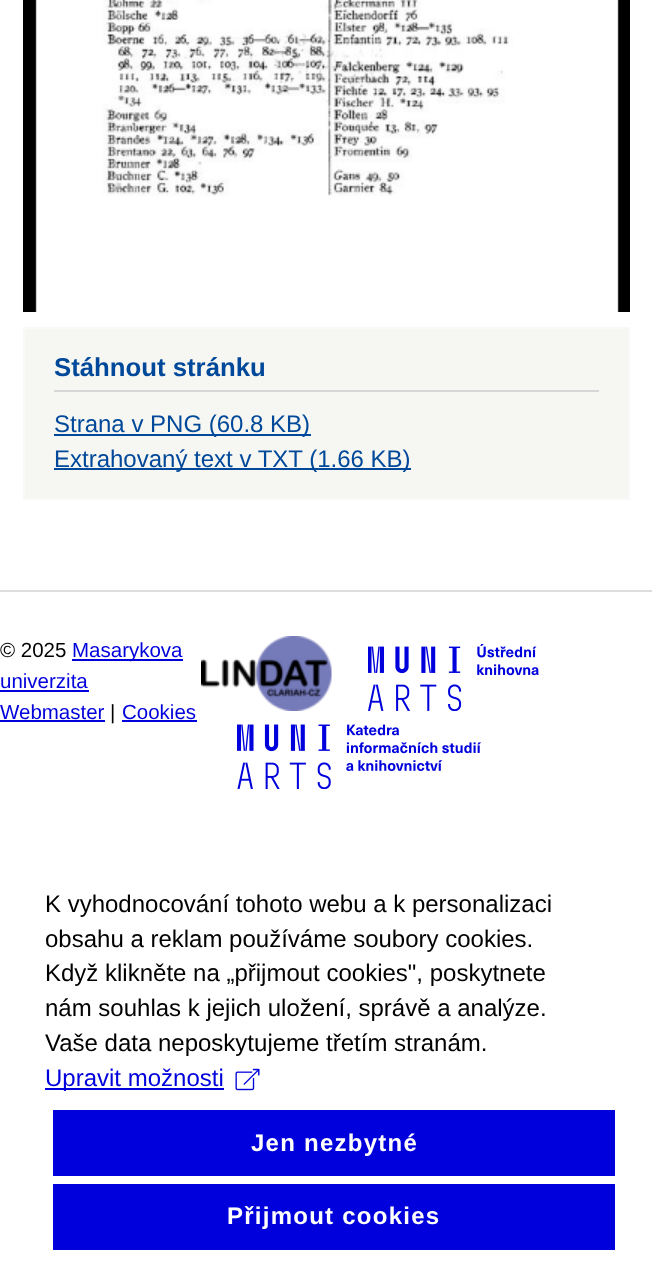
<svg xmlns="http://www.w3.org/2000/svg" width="652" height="1271">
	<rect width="100%" height="100%" fill="#FFFFFF" />
	<rect x="0" y="590" width="652" height="2" fill="#DDDDDD" />
	<rect x="23" y="0" width="607" height="312" fill="#000000" />
	<image x="35" y="0" width="584" height="312" href="assets/img1.png" />
	<rect x="24" y="328" width="605" height="171" fill="#F6F6F2" stroke="#F9F9F9" stroke-width="2" />
	<rect x="54" y="390" width="545" height="2" fill="#D6D6D6" />
	<text x="54" y="376" font-family="Liberation Sans" font-size="25.75" font-weight="700" fill="#004899">Stáhnout stránku</text>
	<rect x="54" y="434" width="257" height="2" fill="#004899" />
	<text x="54" y="432" font-family="Liberation Sans" font-size="24" fill="#004899">Strana v PNG (60.8 KB)</text>
	<rect x="54" y="468" width="357" height="2" fill="#004899" />
	<text x="54" y="467" font-family="Liberation Sans" font-size="24" fill="#004899">Extrahovaný text v TXT (1.66 KB)</text>
	<text x="0" y="657" font-family="Liberation Sans" font-size="20.5" fill="#000000">© 2025</text>
	<rect x="72" y="659" width="111" height="2" fill="#0000DC" />
	<g font-family="Liberation Sans" font-size="20.5" fill="#0000DC">
		<text x="72" y="657">Masarykova</text>
		<text x="0" y="688">univerzita</text>
	</g>
	<rect x="0" y="690" width="89" height="2" fill="#0000DC" />
	<text x="0" y="719" font-family="Liberation Sans" font-size="20.5" fill="#0000DC">Webmaster</text>
	<rect x="0" y="720" width="105" height="2" fill="#0000DC" />
	<text x="110" y="719" font-family="Liberation Sans" font-size="20.5" fill="#000000">|</text>
	<text x="122" y="719" font-family="Liberation Sans" font-size="20.5" fill="#0000DC">Cookies</text>
	<rect x="122" y="720" width="75" height="2" fill="#0000DC" />
	<image x="201" y="636" width="131" height="75" href="assets/img2.png" />
	<image x="368" y="644" width="171" height="67" href="assets/img3.png" />
	<image x="237" y="724" width="244" height="65" href="assets/img4.png" />
	<g font-family="Liberation Sans" font-size="24" fill="#000000">
		<text x="45" y="912">K vyhodnocování tohoto webu a k personalizaci</text>
		<text x="45" y="947">obsahu a reklam používáme soubory cookies.</text>
		<text x="45" y="981">Když klikněte na „přijmout cookies", poskytnete</text>
		<text x="45" y="1016">nám souhlas k jejich uložení, správě a analýze.</text>
		<text x="45" y="1051">Vaše data neposkytujeme třetím stranám.</text>
	</g>
	<rect x="45" y="1088" width="179" height="2" fill="#0000DC" />
	<text x="45" y="1086" font-family="Liberation Sans" font-size="24" fill="#0000DC">Upravit možnosti</text>
	<image x="235" y="1068" width="25" height="23" href="assets/img5.png" />
	<rect x="53" y="1110" width="562" height="66" fill="#0000DC" />
	<text x="251" y="1151" font-family="Liberation Sans" font-size="24" font-weight="700" letter-spacing="1.25" fill="#FFFFFF">Jen nezbytné</text>
	<rect x="53" y="1184" width="562" height="66" fill="#0000DC" />
	<text x="227" y="1224" font-family="Liberation Sans" font-size="24" font-weight="700" letter-spacing="1.25" fill="#FFFFFF">Přijmout cookies</text>
</svg>
